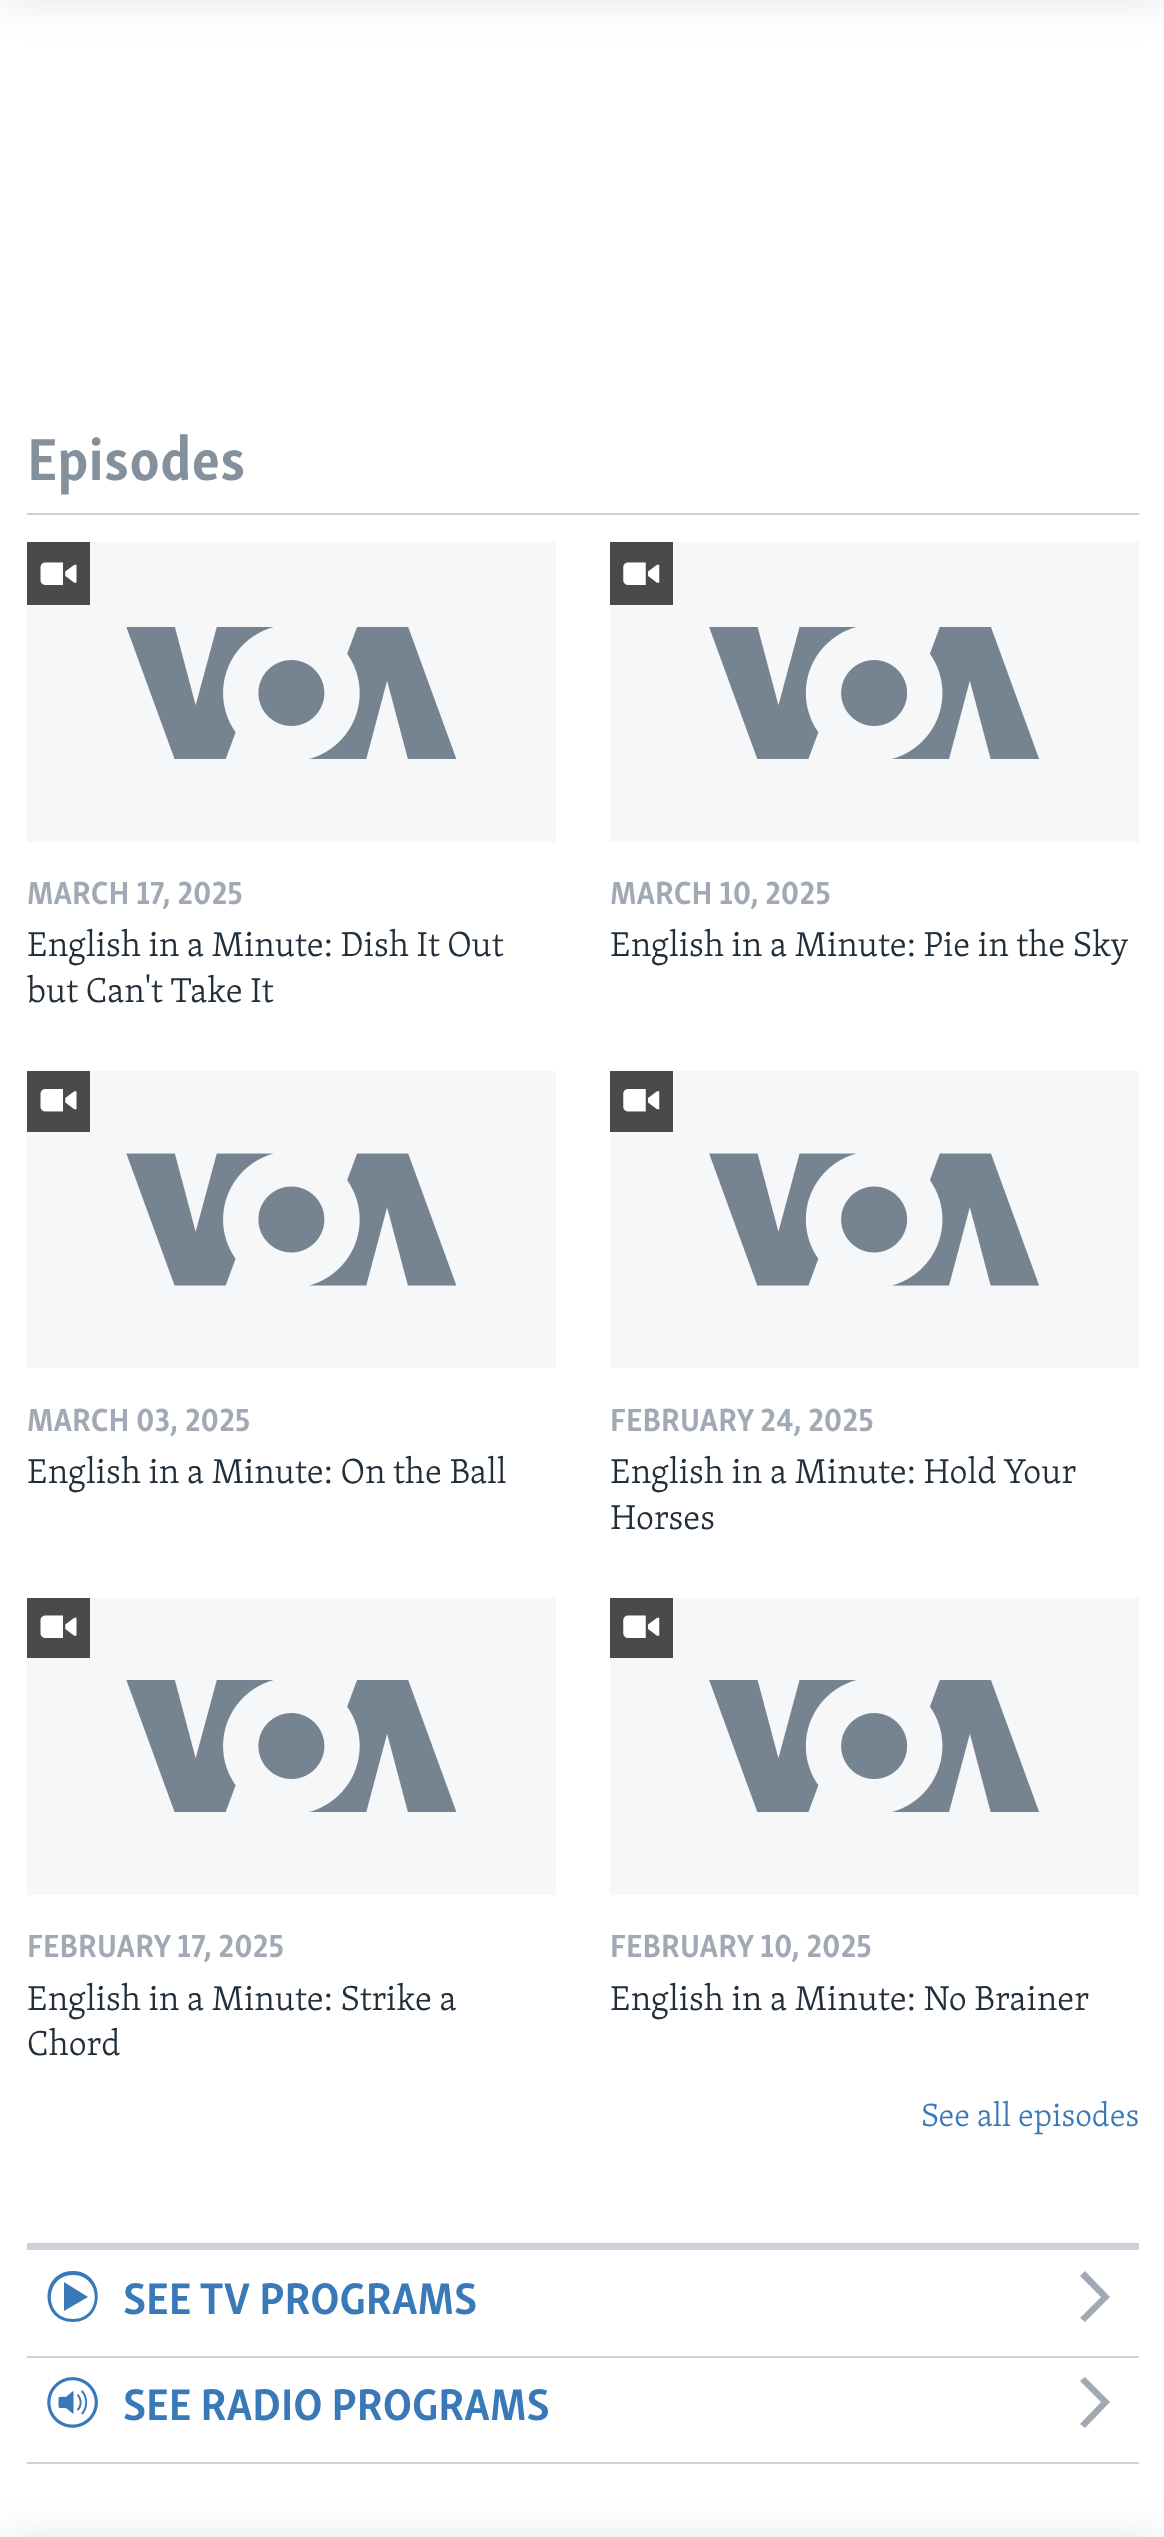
<svg xmlns="http://www.w3.org/2000/svg" width="1164" height="2537">
	<rect width="100%" height="100%" fill="#FFFFFF" />
	<rect x="0" y="-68" width="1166" height="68" fill="#000000" fill-opacity="0.1" filter="blur(22.5px)" />
	<rect x="0" y="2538" width="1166" height="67" fill="#000000" fill-opacity="0.1" filter="blur(22.5px)" />
	<rect x="27" y="513" width="1112" height="2" fill="#CBD1D6" />
	<text x="27" y="480" font-family="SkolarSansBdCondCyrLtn" font-size="61" font-weight="700" fill="#84919D">Episodes</text>
	<rect x="27" y="542" width="529" height="300" fill="#F6F7F8" />
	<image x="126" y="627" width="331" height="132" href="assets/img1.png" />
	<rect x="27" y="542" width="63" height="63" fill="#4A4A4A" />
	<image x="40" y="562" width="37" height="23" href="assets/img2.png" />
	<text x="27" y="904" font-family="SkolarSansBdCondCyrLtn" font-size="33" font-weight="700" fill="#A1AAB4">MARCH 17, 2025</text>
	<g font-family="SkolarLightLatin" font-size="35.5" font-weight="300" fill="#222F3A">
		<text x="27" y="956">English in a Minute: Dish It Out</text>
		<text x="27" y="1002">but Can't Take It</text>
	</g>
	<rect x="610" y="542" width="529" height="300" fill="#F6F7F8" />
	<image x="709" y="627" width="330" height="132" href="assets/img3.png" />
	<rect x="610" y="542" width="63" height="63" fill="#4A4A4A" />
	<image x="623" y="562" width="37" height="23" href="assets/img4.png" />
	<text x="610" y="904" font-family="SkolarSansBdCondCyrLtn" font-size="33" font-weight="700" fill="#A1AAB4">MARCH 10, 2025</text>
	<text x="610" y="956" font-family="SkolarLightLatin" font-size="35.5" font-weight="300" fill="#222F3A">English in a Minute: Pie in the Sky</text>
	<rect x="27" y="1071" width="529" height="297" fill="#F6F7F8" />
	<image x="126" y="1153" width="331" height="133" href="assets/img5.png" />
	<rect x="27" y="1071" width="63" height="61" fill="#4A4A4A" />
	<image x="40" y="1089" width="37" height="23" href="assets/img6.png" />
	<text x="27" y="1431" font-family="SkolarSansBdCondCyrLtn" font-size="33" font-weight="700" fill="#A1AAB4">MARCH 03, 2025</text>
	<text x="27" y="1483" font-family="SkolarLightLatin" font-size="35.5" font-weight="300" fill="#222F3A">English in a Minute: On the Ball</text>
	<rect x="610" y="1071" width="529" height="297" fill="#F6F7F8" />
	<image x="709" y="1153" width="331" height="133" href="assets/img7.png" />
	<rect x="610" y="1071" width="63" height="61" fill="#4A4A4A" />
	<image x="623" y="1089" width="37" height="23" href="assets/img8.png" />
	<text x="610" y="1431" font-family="SkolarSansBdCondCyrLtn" font-size="33" font-weight="700" fill="#A1AAB4">FEBRUARY 24, 2025</text>
	<g font-family="SkolarLightLatin" font-size="35.5" font-weight="300" fill="#222F3A">
		<text x="610" y="1483">English in a Minute: Hold Your</text>
		<text x="610" y="1529">Horses</text>
	</g>
	<rect x="27" y="1598" width="529" height="297" fill="#F6F7F8" />
	<image x="126" y="1680" width="331" height="132" href="assets/img1.png" />
	<rect x="27" y="1598" width="63" height="60" fill="#4A4A4A" />
	<image x="40" y="1615" width="37" height="23" href="assets/img2.png" />
	<text x="27" y="1957" font-family="SkolarSansBdCondCyrLtn" font-size="33" font-weight="700" fill="#A1AAB4">FEBRUARY 17, 2025</text>
	<g font-family="SkolarLightLatin" font-size="35.5" font-weight="300" fill="#222F3A">
		<text x="27" y="2010">English in a Minute: Strike a</text>
		<text x="27" y="2055">Chord</text>
	</g>
	<rect x="610" y="1598" width="529" height="297" fill="#F6F7F8" />
	<image x="709" y="1680" width="330" height="132" href="assets/img3.png" />
	<rect x="610" y="1598" width="63" height="60" fill="#4A4A4A" />
	<image x="623" y="1615" width="37" height="23" href="assets/img4.png" />
	<text x="610" y="1957" font-family="SkolarSansBdCondCyrLtn" font-size="33" font-weight="700" fill="#A1AAB4">FEBRUARY 10, 2025</text>
	<text x="610" y="2010" font-family="SkolarLightLatin" font-size="35.5" font-weight="300" fill="#222F3A">English in a Minute: No Brainer</text>
	<text x="921" y="2126" font-family="SkolarLightLatin" font-size="33" font-weight="300" fill="#3A79B7">See all episodes</text>
	<rect x="27" y="2243" width="1112" height="7" fill="#CBD1D6" />
	<rect x="27" y="2356" width="1112" height="2" fill="#CBD1D6" />
	<path d="M64 2311L88 2297L64 2282ZM73 2275C102 2275 102 2319 73 2319C43 2319 44 2275 73 2275ZM73 2271C39 2271 39 2322 73 2322C106 2322 106 2271 73 2271Z" fill="#3A79B7" />
	<text x="123" y="2314" font-family="SkolarSansBdCondCyrLtn" font-size="45.5" font-weight="700" fill="#3A79B7">SEE TV PROGRAMS</text>
	<path d="M1085 2322L1110 2297L1085 2271L1080 2276L1101 2297L1080 2318Z" fill="#A1AAB4" />
	<rect x="27" y="2462" width="1112" height="2" fill="#CBD1D6" />
	<image x="47" y="2377" width="51" height="51" href="assets/img9.png" />
	<text x="123" y="2420" font-family="SkolarSansBdCondCyrLtn" font-size="45.5" font-weight="700" fill="#3A79B7">SEE RADIO PROGRAMS</text>
	<path d="M1085 2428L1110 2402L1085 2377L1080 2381L1101 2402L1080 2424Z" fill="#A1AAB4" />
</svg>
